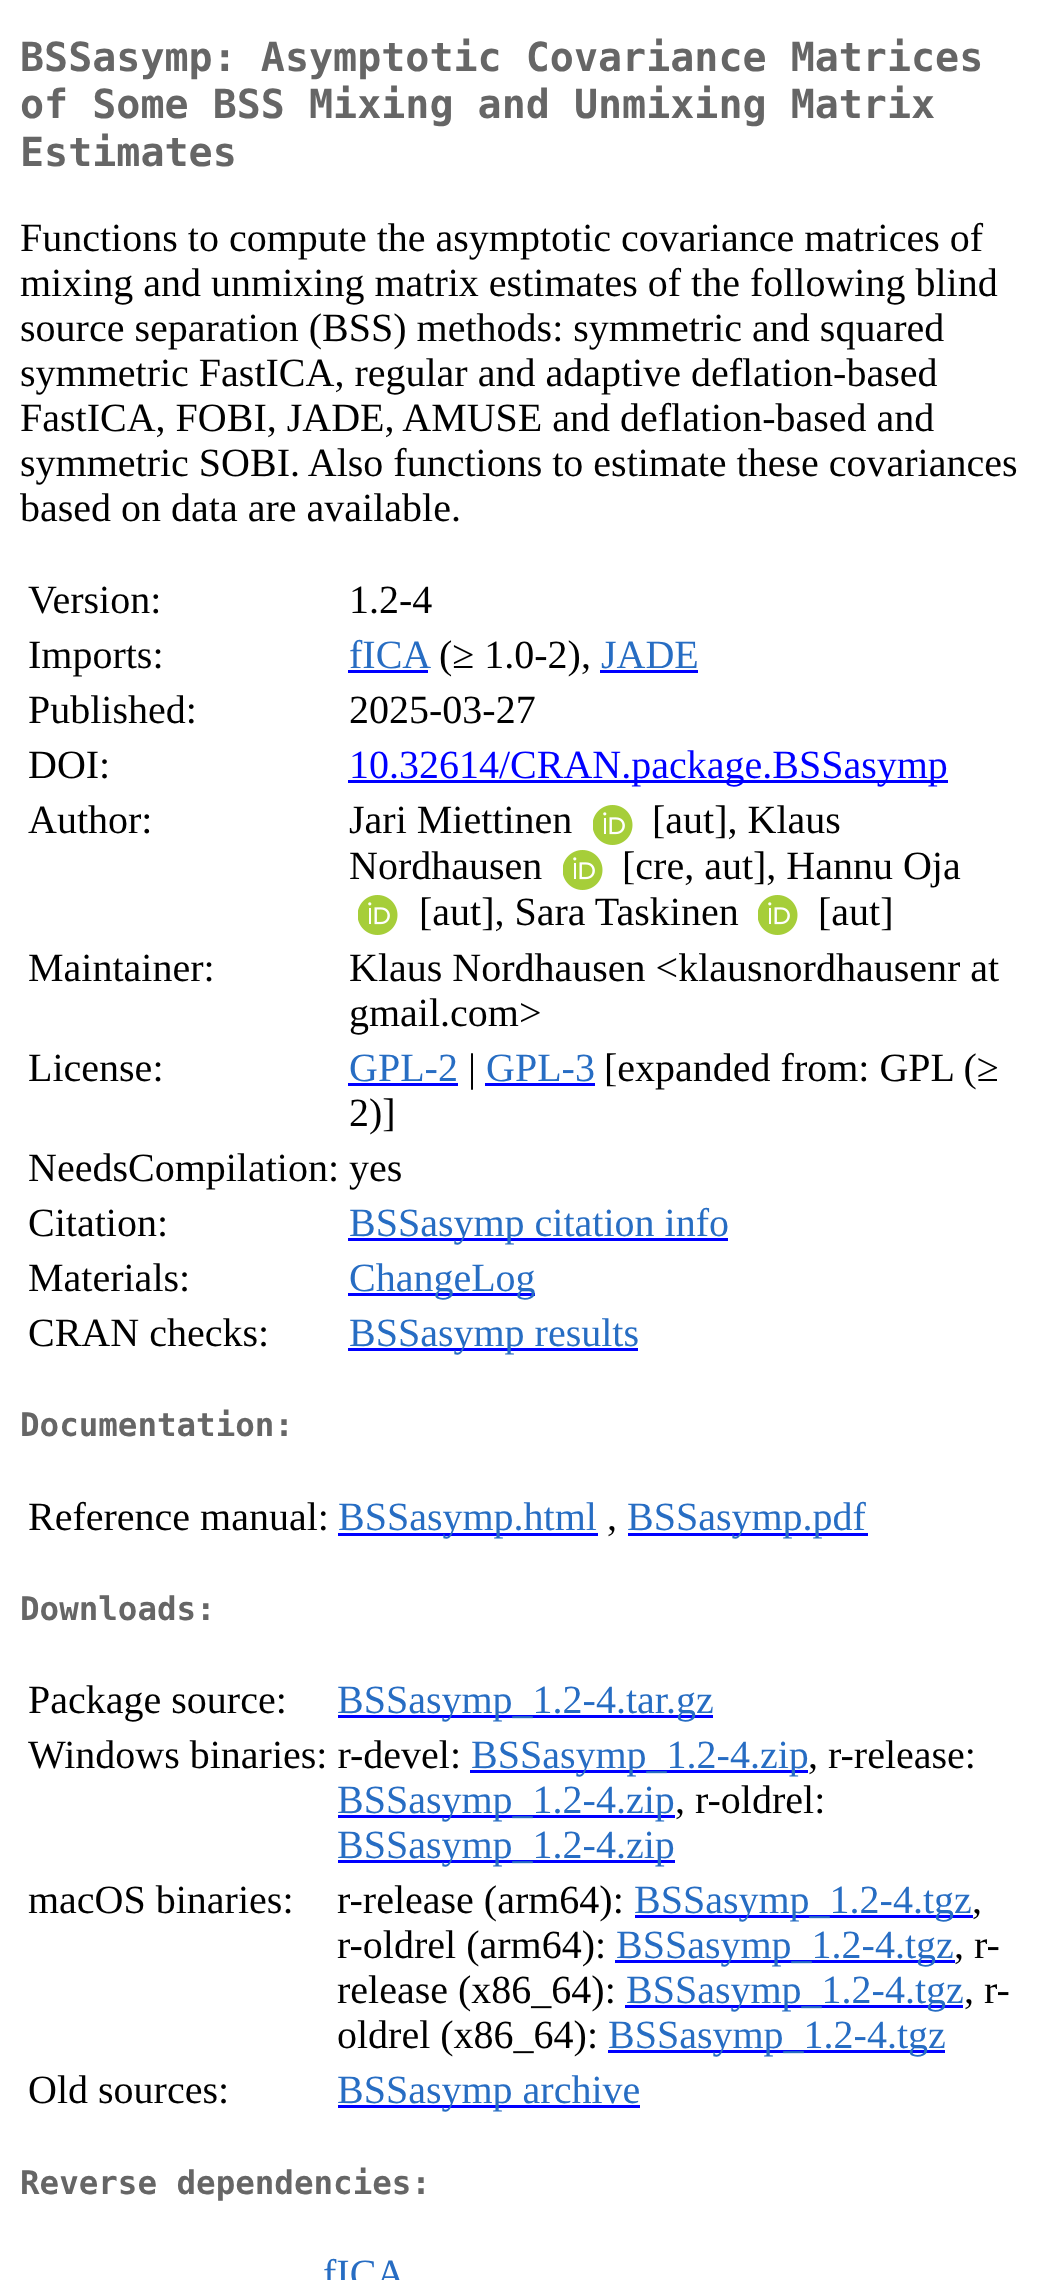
<svg xmlns="http://www.w3.org/2000/svg" width="1039" height="2280">
	<rect width="100%" height="100%" fill="#FFFFFF" />
	<g font-family="DejaVu Sans Mono" font-size="40" font-weight="700" fill="#666666">
		<text x="20" y="71">BSSasymp: Asymptotic Covariance Matrices</text>
		<text x="20" y="118">of Some BSS Mixing and Unmixing Matrix</text>
		<text x="20" y="166">Estimates</text>
	</g>
	<g font-family="Liberation Serif" font-size="40" fill="#000000">
		<text x="20" y="251">Functions to compute the asymptotic covariance matrices of</text>
		<text x="20" y="296">mixing and unmixing matrix estimates of the following blind</text>
		<text x="20" y="341">source separation (BSS) methods: symmetric and squared</text>
		<text x="20" y="386">symmetric FastICA, regular and adaptive deflation-based</text>
		<text x="20" y="431">FastICA, FOBI, JADE, AMUSE and deflation-based and</text>
		<text x="20" y="476">symmetric SOBI. Also functions to estimate these covariances</text>
		<text x="20" y="521">based on data are available.</text>
		<text x="28" y="613">Version:</text>
		<text x="349" y="613">1.2-4</text>
		<text x="28" y="668">Imports:</text>
	</g>
	<text x="349" y="668" font-family="Liberation Serif" font-size="40" fill="#276DC3">fICA</text>
	<rect x="348" y="670" width="80" height="3" fill="#0000FF" />
	<text x="439" y="668" font-family="Liberation Serif" font-size="40" fill="#000000">(≥ 1.0-2),</text>
	<text x="601" y="668" font-family="Liberation Serif" font-size="40" fill="#276DC3">JADE</text>
	<rect x="600" y="670" width="98" height="3" fill="#0000FF" />
	<g font-family="Liberation Serif" font-size="40" fill="#000000">
		<text x="28" y="723">Published:</text>
		<text x="349" y="723">2025-03-27</text>
		<text x="28" y="778">DOI:</text>
	</g>
	<rect x="348" y="780" width="600" height="3" fill="#0000FF" />
	<text x="349" y="778" font-family="Liberation Serif" font-size="40" fill="#0000FF">10.32614/CRAN.package.BSSasymp</text>
	<g font-family="Liberation Serif" font-size="40" fill="#000000">
		<text x="28" y="833">Author:</text>
		<text x="349" y="833">Jari Miettinen</text>
	</g>
	<image x="593" y="805" width="40" height="40" href="assets/img1.png" />
	<g font-family="Liberation Serif" font-size="40" fill="#000000">
		<text x="652" y="833">[aut], Klaus</text>
		<text x="349" y="879">Nordhausen</text>
	</g>
	<image x="563" y="850" width="40" height="40" href="assets/img1.png" />
	<text x="622" y="879" font-family="Liberation Serif" font-size="40" fill="#000000">[cre, aut], Hannu Oja</text>
	<image x="358" y="895" width="40" height="40" href="assets/img1.png" />
	<text x="419" y="925" font-family="Liberation Serif" font-size="40" fill="#000000">[aut], Sara Taskinen</text>
	<image x="758" y="895" width="40" height="40" href="assets/img1.png" />
	<g font-family="Liberation Serif" font-size="40" fill="#000000">
		<text x="818" y="925">[aut]</text>
		<text x="28" y="981">Maintainer:</text>
		<text x="349" y="981">Klaus Nordhausen &lt;klausnordhausenr at</text>
		<text x="349" y="1026">gmail.com&gt;</text>
		<text x="28" y="1081">License:</text>
	</g>
	<text x="349" y="1081" font-family="Liberation Serif" font-size="40" fill="#276DC3">GPL-2</text>
	<rect x="348" y="1083" width="110" height="3" fill="#0000FF" />
	<text x="468" y="1081" font-family="Liberation Serif" font-size="40" fill="#000000">|</text>
	<text x="486" y="1081" font-family="Liberation Serif" font-size="40" fill="#276DC3">GPL-3</text>
	<rect x="485" y="1083" width="110" height="3" fill="#0000FF" />
	<g font-family="Liberation Serif" font-size="40" fill="#000000">
		<text x="604" y="1081">[expanded from: GPL (≥</text>
		<text x="349" y="1126">2)]</text>
		<text x="28" y="1181">NeedsCompilation: yes</text>
		<text x="28" y="1236">Citation:</text>
	</g>
	<rect x="348" y="1238" width="380" height="3" fill="#0000FF" />
	<text x="349" y="1236" font-family="Liberation Serif" font-size="40" fill="#276DC3">BSSasymp citation info</text>
	<text x="28" y="1291" font-family="Liberation Serif" font-size="40" fill="#000000">Materials:</text>
	<rect x="348" y="1293" width="187" height="3" fill="#0000FF" />
	<text x="349" y="1291" font-family="Liberation Serif" font-size="40" fill="#276DC3">ChangeLog</text>
	<text x="28" y="1346" font-family="Liberation Serif" font-size="40" fill="#000000">CRAN checks:</text>
	<rect x="348" y="1348" width="290" height="3" fill="#0000FF" />
	<text x="349" y="1346" font-family="Liberation Serif" font-size="40" fill="#276DC3">BSSasymp results</text>
	<text x="20" y="1436" font-family="DejaVu Sans Mono" font-size="32.5" font-weight="700" fill="#666666">Documentation:</text>
	<text x="28" y="1530" font-family="Liberation Serif" font-size="40" fill="#000000">Reference manual:</text>
	<rect x="338" y="1533" width="260" height="3" fill="#0000FF" />
	<text x="338" y="1530" font-family="Liberation Serif" font-size="40" fill="#276DC3">BSSasymp.html</text>
	<text x="607" y="1530" font-family="Liberation Serif" font-size="40" fill="#000000">,</text>
	<rect x="628" y="1533" width="240" height="3" fill="#0000FF" />
	<text x="627" y="1530" font-family="Liberation Serif" font-size="40" fill="#276DC3">BSSasymp.pdf</text>
	<text x="20" y="1620" font-family="DejaVu Sans Mono" font-size="32.5" font-weight="700" fill="#666666">Downloads:</text>
	<text x="28" y="1713" font-family="Liberation Serif" font-size="40" fill="#000000">Package source:</text>
	<rect x="338" y="1715" width="375" height="3" fill="#0000FF" />
	<text x="337" y="1713" font-family="Liberation Serif" font-size="40" fill="#276DC3">BSSasymp_1.2-4.tar.gz</text>
	<text x="28" y="1768" font-family="Liberation Serif" font-size="40" fill="#000000">Windows binaries: r-devel:</text>
	<rect x="470" y="1770" width="338" height="3" fill="#0000FF" />
	<text x="471" y="1768" font-family="Liberation Serif" font-size="40" fill="#276DC3">BSSasymp_1.2-4.zip</text>
	<text x="808" y="1768" font-family="Liberation Serif" font-size="40" fill="#000000">, r-release:</text>
	<rect x="338" y="1815" width="337" height="3" fill="#0000FF" />
	<text x="337" y="1813" font-family="Liberation Serif" font-size="40" fill="#276DC3">BSSasymp_1.2-4.zip</text>
	<text x="675" y="1813" font-family="Liberation Serif" font-size="40" fill="#000000">, r-oldrel:</text>
	<rect x="338" y="1860" width="337" height="3" fill="#0000FF" />
	<text x="337" y="1858" font-family="Liberation Serif" font-size="40" fill="#276DC3">BSSasymp_1.2-4.zip</text>
	<g font-family="Liberation Serif" font-size="40" fill="#000000">
		<text x="28" y="1913">macOS binaries:</text>
		<text x="337" y="1913">r-release (arm64):</text>
	</g>
	<rect x="635" y="1915" width="338" height="3" fill="#0000FF" />
	<text x="634" y="1913" font-family="Liberation Serif" font-size="40" fill="#276DC3">BSSasymp_1.2-4.tgz</text>
	<g font-family="Liberation Serif" font-size="40" fill="#000000">
		<text x="972" y="1913">,</text>
		<text x="337" y="1958">r-oldrel (arm64):</text>
	</g>
	<rect x="615" y="1960" width="340" height="3" fill="#0000FF" />
	<text x="616" y="1958" font-family="Liberation Serif" font-size="40" fill="#276DC3">BSSasymp_1.2-4.tgz</text>
	<g font-family="Liberation Serif" font-size="40" fill="#000000">
		<text x="954" y="1958">, r-</text>
		<text x="337" y="2003">release (x86_64):</text>
	</g>
	<rect x="625" y="2005" width="338" height="3" fill="#0000FF" />
	<text x="626" y="2003" font-family="Liberation Serif" font-size="40" fill="#276DC3">BSSasymp_1.2-4.tgz</text>
	<g font-family="Liberation Serif" font-size="40" fill="#000000">
		<text x="964" y="2003">, r-</text>
		<text x="337" y="2048">oldrel (x86_64):</text>
	</g>
	<rect x="608" y="2050" width="337" height="3" fill="#0000FF" />
	<text x="608" y="2048" font-family="Liberation Serif" font-size="40" fill="#276DC3">BSSasymp_1.2-4.tgz</text>
	<text x="28" y="2103" font-family="Liberation Serif" font-size="40" fill="#000000">Old sources:</text>
	<rect x="338" y="2105" width="302" height="3" fill="#0000FF" />
	<text x="337" y="2103" font-family="Liberation Serif" font-size="40" fill="#276DC3">BSSasymp archive</text>
	<text x="20" y="2194" font-family="DejaVu Sans Mono" font-size="32.5" font-weight="700" fill="#666666">Reverse dependencies:</text>
	<text x="323" y="2287" font-family="Liberation Serif" font-size="40" fill="#276DC3">fICA</text>
</svg>
